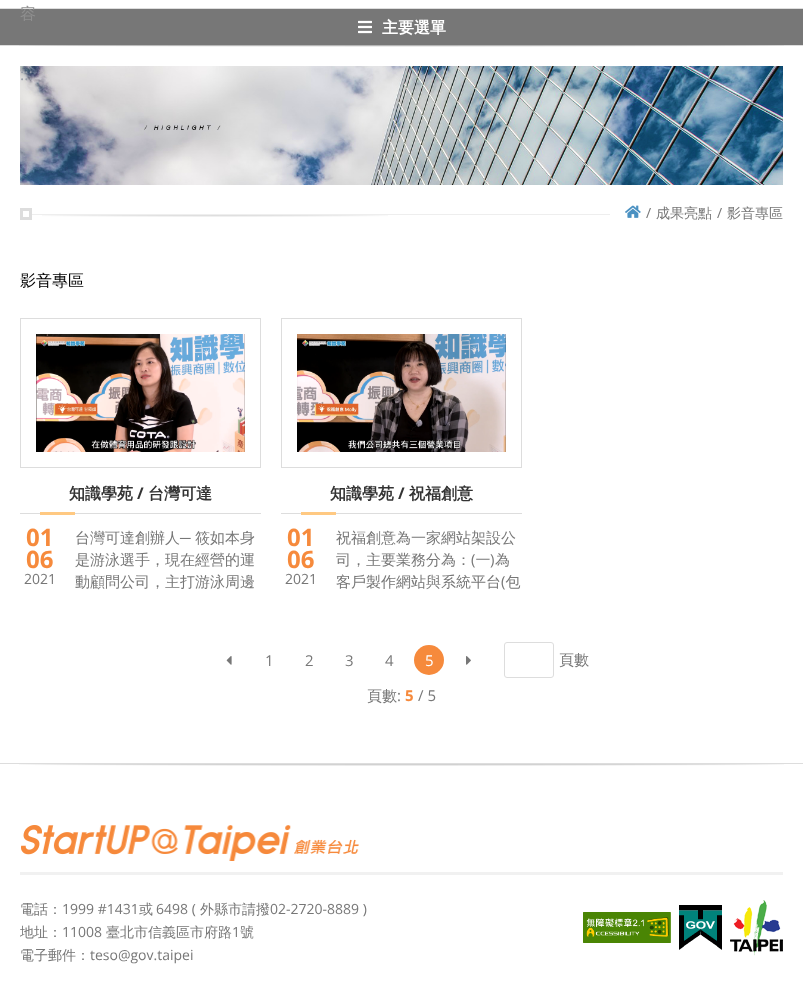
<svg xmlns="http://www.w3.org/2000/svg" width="803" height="981">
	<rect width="100%" height="100%" fill="#FFFFFF" />
	<rect x="0" y="8" width="803" height="1" fill="#DDDDDD" />
	<rect x="0" y="9" width="803" height="36" fill="#777777" />
	<text x="20" y="19" font-family="WenQuanYi Zen Hei" font-size="16" font-weight="500" fill="#8F8F8F">容</text>
	<rect x="0" y="45" width="803" height="1" fill="#DDDDDD" />
	<image x="358" y="20" width="14" height="14" href="assets/img1.png" />
	<text x="382" y="33" font-family="WenQuanYi Zen Hei" font-size="16" font-weight="700" fill="#FFFFFF">主要選單</text>
	<image x="19" y="45" width="765" height="2" href="assets/img2.png" />
	<image x="20" y="66" width="763" height="119" href="assets/img3.png" />
	<text x="20" y="80" font-family="Open Sans" font-size="16" fill="#969CA8">:::</text>
	<rect x="21.5" y="209.5" width="9" height="9" fill="none" stroke="#DDDDDD" stroke-width="3" />
	<rect x="32" y="214" width="578" height="1" fill="#EEEEEE" />
	<image x="625" y="205" width="16" height="13" href="assets/img4.png" />
	<text x="646" y="218" font-family="Open Sans" font-size="14" fill="#777777">/</text>
	<text x="656" y="218" font-family="WenQuanYi Zen Hei" font-size="14" font-weight="500" fill="#777777">成果亮點</text>
	<text x="717" y="218" font-family="Open Sans" font-size="14" fill="#777777">/</text>
	<text x="727" y="218" font-family="WenQuanYi Zen Hei" font-size="14" font-weight="500" fill="#777777">影音專區</text>
	<image x="42" y="215" width="346" height="2" href="assets/img5.png" />
	<text x="20" y="286" font-family="WenQuanYi Zen Hei" font-size="16" font-weight="500" fill="#000000">影音專區</text>
	<rect x="20.5" y="318.5" width="240" height="149" fill="none" stroke="#DDDDDD" />
	<image x="36" y="334" width="209" height="118" href="assets/img6.png" />
	<text x="69" y="499" font-family="WenQuanYi Zen Hei" font-size="16" font-weight="700" fill="#333333">知識學苑</text>
	<text x="137" y="499" font-family="Open Sans" font-size="16" font-weight="700" fill="#333333">/</text>
	<text x="148" y="499" font-family="WenQuanYi Zen Hei" font-size="16" font-weight="700" fill="#333333">台灣可達</text>
	<rect x="20" y="513" width="241" height="1" fill="#DDDDDD" />
	<rect x="40" y="512" width="35" height="3" fill="#FFC982" />
	<g font-family="Open Sans" font-size="24" font-weight="700" fill="#F68A3C">
		<text x="26" y="546">01</text>
		<text x="26" y="568">06</text>
	</g>
	<text x="24" y="584" font-family="Open Sans" font-size="14" fill="#777777">2021</text>
	<text x="75" y="543" font-family="WenQuanYi Zen Hei" font-size="15" font-weight="500" fill="#777777">台灣可達創辦人</text>
	<text x="180" y="543" font-family="Liberation Sans" font-size="15" fill="#777777">─</text>
	<g font-family="WenQuanYi Zen Hei" font-size="15" font-weight="500" fill="#777777">
		<text x="195" y="543">筱如本身</text>
		<text x="75" y="565">是游泳選手，現在經營的運</text>
		<text x="75" y="587">動顧問公司，主打游泳周邊</text>
	</g>
	<rect x="281.5" y="318.5" width="240" height="149" fill="none" stroke="#DDDDDD" />
	<image x="297" y="334" width="209" height="118" href="assets/img7.png" />
	<text x="330" y="499" font-family="WenQuanYi Zen Hei" font-size="16" font-weight="700" fill="#333333">知識學苑</text>
	<text x="398" y="499" font-family="Open Sans" font-size="16" font-weight="700" fill="#333333">/</text>
	<text x="409" y="499" font-family="WenQuanYi Zen Hei" font-size="16" font-weight="700" fill="#333333">祝福創意</text>
	<rect x="281" y="513" width="241" height="1" fill="#DDDDDD" />
	<rect x="301" y="512" width="35" height="3" fill="#FFC982" />
	<g font-family="Open Sans" font-size="24" font-weight="700" fill="#F68A3C">
		<text x="287" y="546">01</text>
		<text x="287" y="568">06</text>
	</g>
	<text x="285" y="584" font-family="Open Sans" font-size="14" fill="#777777">2021</text>
	<g font-family="WenQuanYi Zen Hei" font-size="15" font-weight="500" fill="#777777">
		<text x="336" y="543">祝福創意為一家網站架設公</text>
		<text x="336" y="565">司，主要業務分為： 一 為</text>
	</g>
	<g font-family="Open Sans" font-size="15" fill="#777777">
		<text x="471" y="565">(</text>
		<text x="490" y="565">)</text>
	</g>
	<text x="336" y="587" font-family="WenQuanYi Zen Hei" font-size="15" font-weight="500" fill="#777777">客戶製作網站與系統平台 包</text>
	<text x="501" y="587" font-family="Open Sans" font-size="15" fill="#777777">(</text>
	<image x="226" y="656" width="6" height="9" href="assets/img8.png" />
	<g font-family="Open Sans" font-size="15" fill="#777777">
		<text x="265" y="666">1</text>
		<text x="305" y="666">2</text>
		<text x="345" y="666">3</text>
		<text x="385" y="666">4</text>
	</g>
	<circle cx="429" cy="660" r="15" fill="#F68A3C" />
	<text x="425" y="666" font-family="Open Sans" font-size="15" fill="#FFFFFF">5</text>
	<image x="466" y="656" width="5" height="9" href="assets/img9.png" />
	<rect x="504.5" y="642.5" width="49" height="35" rx="2.5" fill="none" stroke="#DDDDDD" />
	<g font-family="WenQuanYi Zen Hei" font-size="15" font-weight="500" fill="#777777">
		<text x="559" y="665">頁數</text>
		<text x="367" y="701">頁數</text>
	</g>
	<text x="397" y="701" font-family="Open Sans" font-size="15" fill="#777777">:</text>
	<text x="405" y="701" font-family="Open Sans" font-size="15" font-weight="700" fill="#F68A3C">5</text>
	<text x="418" y="701" font-family="Open Sans" font-size="15" fill="#777777">/ 5</text>
	<rect x="0" y="763" width="803" height="1" fill="#DDDDDD" />
	<image x="19" y="764" width="765" height="2" href="assets/img10.png" />
	<image x="21" y="825" width="338" height="36" href="assets/img11.png" />
	<rect x="20" y="872" width="763" height="3" fill="#F1F1F1" />
	<text x="20" y="914" font-family="WenQuanYi Zen Hei" font-size="14" font-weight="500" fill="#777777">電話：</text>
	<text x="62" y="914" font-family="Open Sans" font-size="14" fill="#777777">1999 #1431</text>
	<text x="139" y="914" font-family="WenQuanYi Zen Hei" font-size="14" font-weight="500" fill="#777777">或</text>
	<text x="156" y="914" font-family="Open Sans" font-size="14" fill="#777777">6498 (</text>
	<text x="200" y="914" font-family="WenQuanYi Zen Hei" font-size="14" font-weight="500" fill="#777777">外縣市請撥</text>
	<text x="270" y="914" font-family="Open Sans" font-size="14" fill="#777777">02-2720-8889 )</text>
	<text x="20" y="937" font-family="WenQuanYi Zen Hei" font-size="14" font-weight="500" fill="#777777">地址：</text>
	<text x="62" y="937" font-family="Open Sans" font-size="14" fill="#777777">11008</text>
	<text x="106" y="937" font-family="WenQuanYi Zen Hei" font-size="14" font-weight="500" fill="#777777">臺北市信義區市府路</text>
	<text x="232" y="937" font-family="Open Sans" font-size="14" fill="#777777">1</text>
	<g font-family="WenQuanYi Zen Hei" font-size="14" font-weight="500" fill="#777777">
		<text x="240" y="937">號</text>
		<text x="20" y="960">電子郵件：</text>
	</g>
	<text x="90" y="960" font-family="Open Sans" font-size="14" fill="#777777">teso@gov.taipei</text>
	<image x="583" y="912" width="88" height="31" href="assets/img12.png" />
	<image x="679" y="905" width="43" height="45" href="assets/img13.png" />
	<image x="730" y="900" width="53" height="56" href="assets/img14.png" />
</svg>
